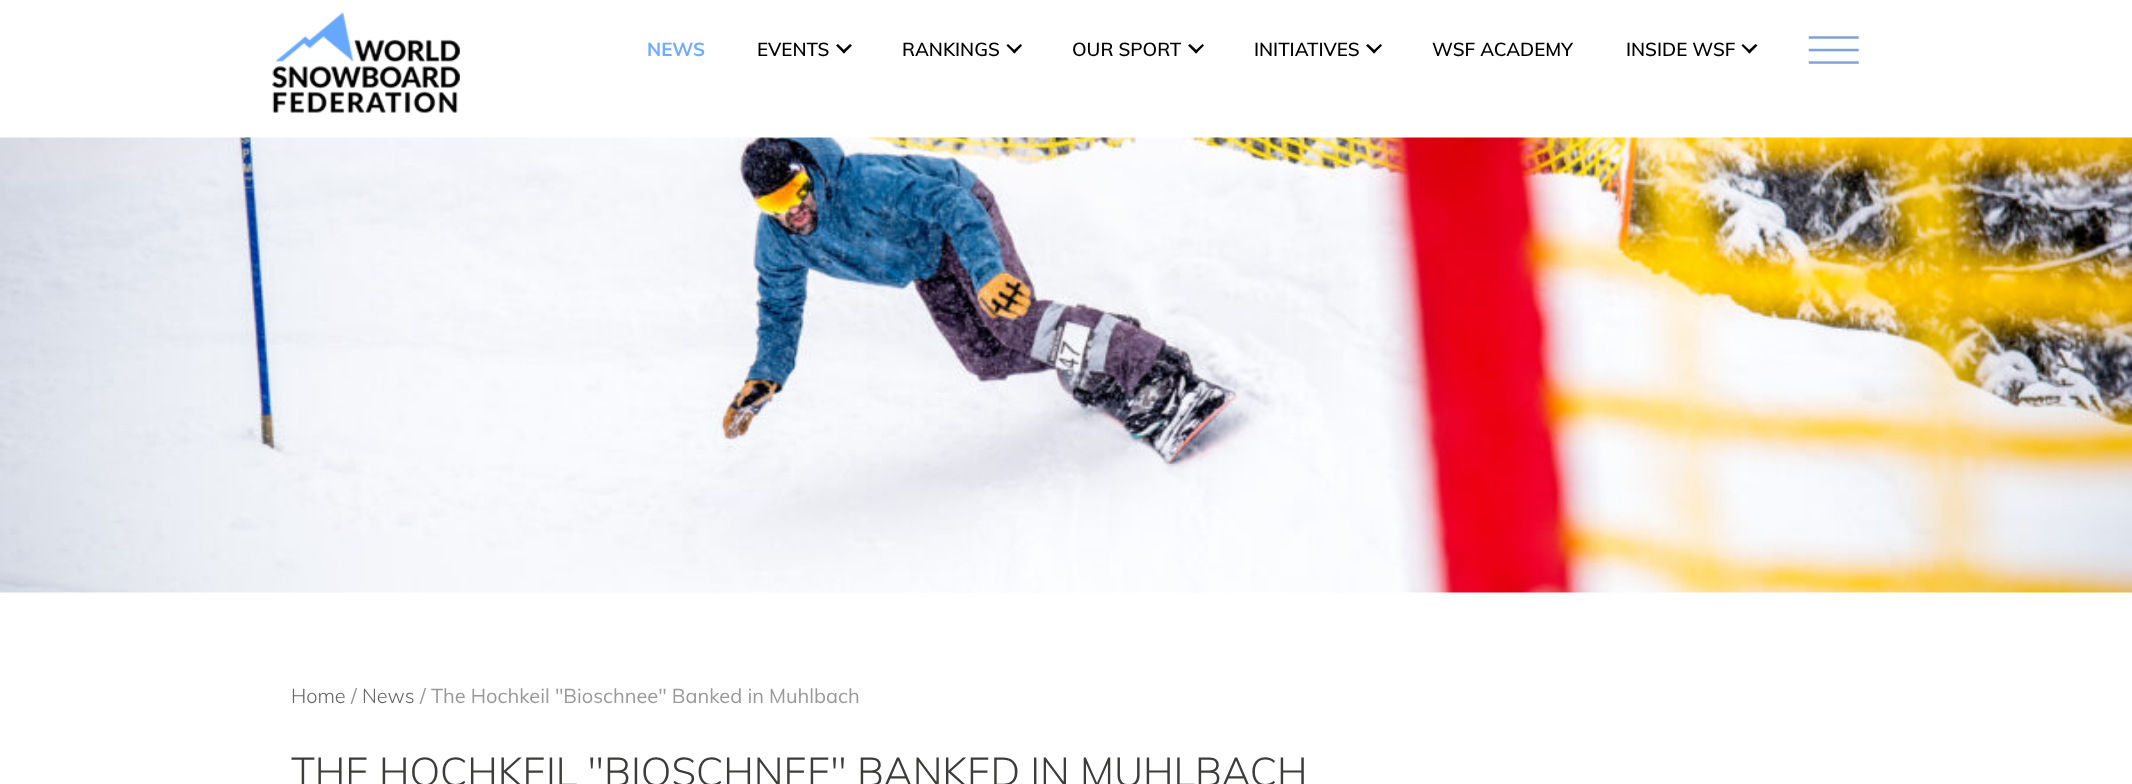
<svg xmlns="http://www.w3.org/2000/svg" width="2132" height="784">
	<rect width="100%" height="100%" fill="#FFFFFF" />
	<image x="272" y="12" width="188" height="101" href="assets/img1.png" />
	<text x="647" y="56" font-family="Muli" font-size="18.75" font-weight="700" fill="#73A9FF">NEWS</text>
	<text x="757" y="56" font-family="Muli" font-size="18.75" font-weight="600" fill="#000000">EVENTS</text>
	<path d="M850 44L852 45.5L844 53.5L842 51.5Z" fill="#000000" />
	<path d="M838 44L845.5 51.5L844 53.5L836 45.5Z" fill="#000000" />
	<text x="902" y="56" font-family="Muli" font-size="18.75" font-weight="600" fill="#000000">RANKINGS</text>
	<path d="M1020.5 44L1022 45.5L1014.5 53.5L1012.5 51.5Z" fill="#000000" />
	<path d="M1008 44L1016 51.5L1014.5 53.5L1006.5 45.5Z" fill="#000000" />
	<text x="1072" y="56" font-family="Muli" font-size="18.75" font-weight="600" fill="#000000">OUR SPORT</text>
	<path d="M1202.5 44L1204 45.5L1196 53.5L1194.5 51.5Z" fill="#000000" />
	<path d="M1190 44L1198 51.5L1196 53.5L1188 45.5Z" fill="#000000" />
	<text x="1254" y="56" font-family="Muli" font-size="18.75" font-weight="600" fill="#000000">INITIATIVES</text>
	<path d="M1380.5 44L1382 45.5L1374 53.5L1372.5 51.5Z" fill="#000000" />
	<path d="M1368 44L1376 51.5L1374 53.5L1366 45.5Z" fill="#000000" />
	<g font-family="Muli" font-size="18.75" font-weight="600" fill="#000000">
		<text x="1432" y="56">WSF ACADEMY</text>
		<text x="1626" y="56">INSIDE WSF</text>
	</g>
	<path d="M1755.5 44L1757.5 45.5L1749.5 53.5L1747.5 51.5Z" fill="#000000" />
	<path d="M1743 44L1751 51.5L1749.5 53.5L1741.5 45.5Z" fill="#000000" />
	<image x="1808" y="36" width="51" height="28" href="assets/img2.png" />
	<image x="0" y="137" width="2132" height="456" href="assets/img3.png" />
	<text x="291" y="703" font-family="Muli" font-size="20" font-weight="300" fill="#666666">Home</text>
	<text x="351" y="703" font-family="Muli" font-size="20" fill="#999999">/</text>
	<text x="362" y="703" font-family="Muli" font-size="20" font-weight="300" fill="#666666">News</text>
	<text x="420" y="703" font-family="Muli" font-size="20" fill="#999999">/ The Hochkeil "Bioschnee" Banked in Muhlbach</text>
	<text x="291" y="786" font-family="Muli" font-size="40" font-weight="300" fill="#3C3C3B">THE HOCHKEIL "BIOSCHNEE" BANKED IN MUHLBACH</text>
</svg>
